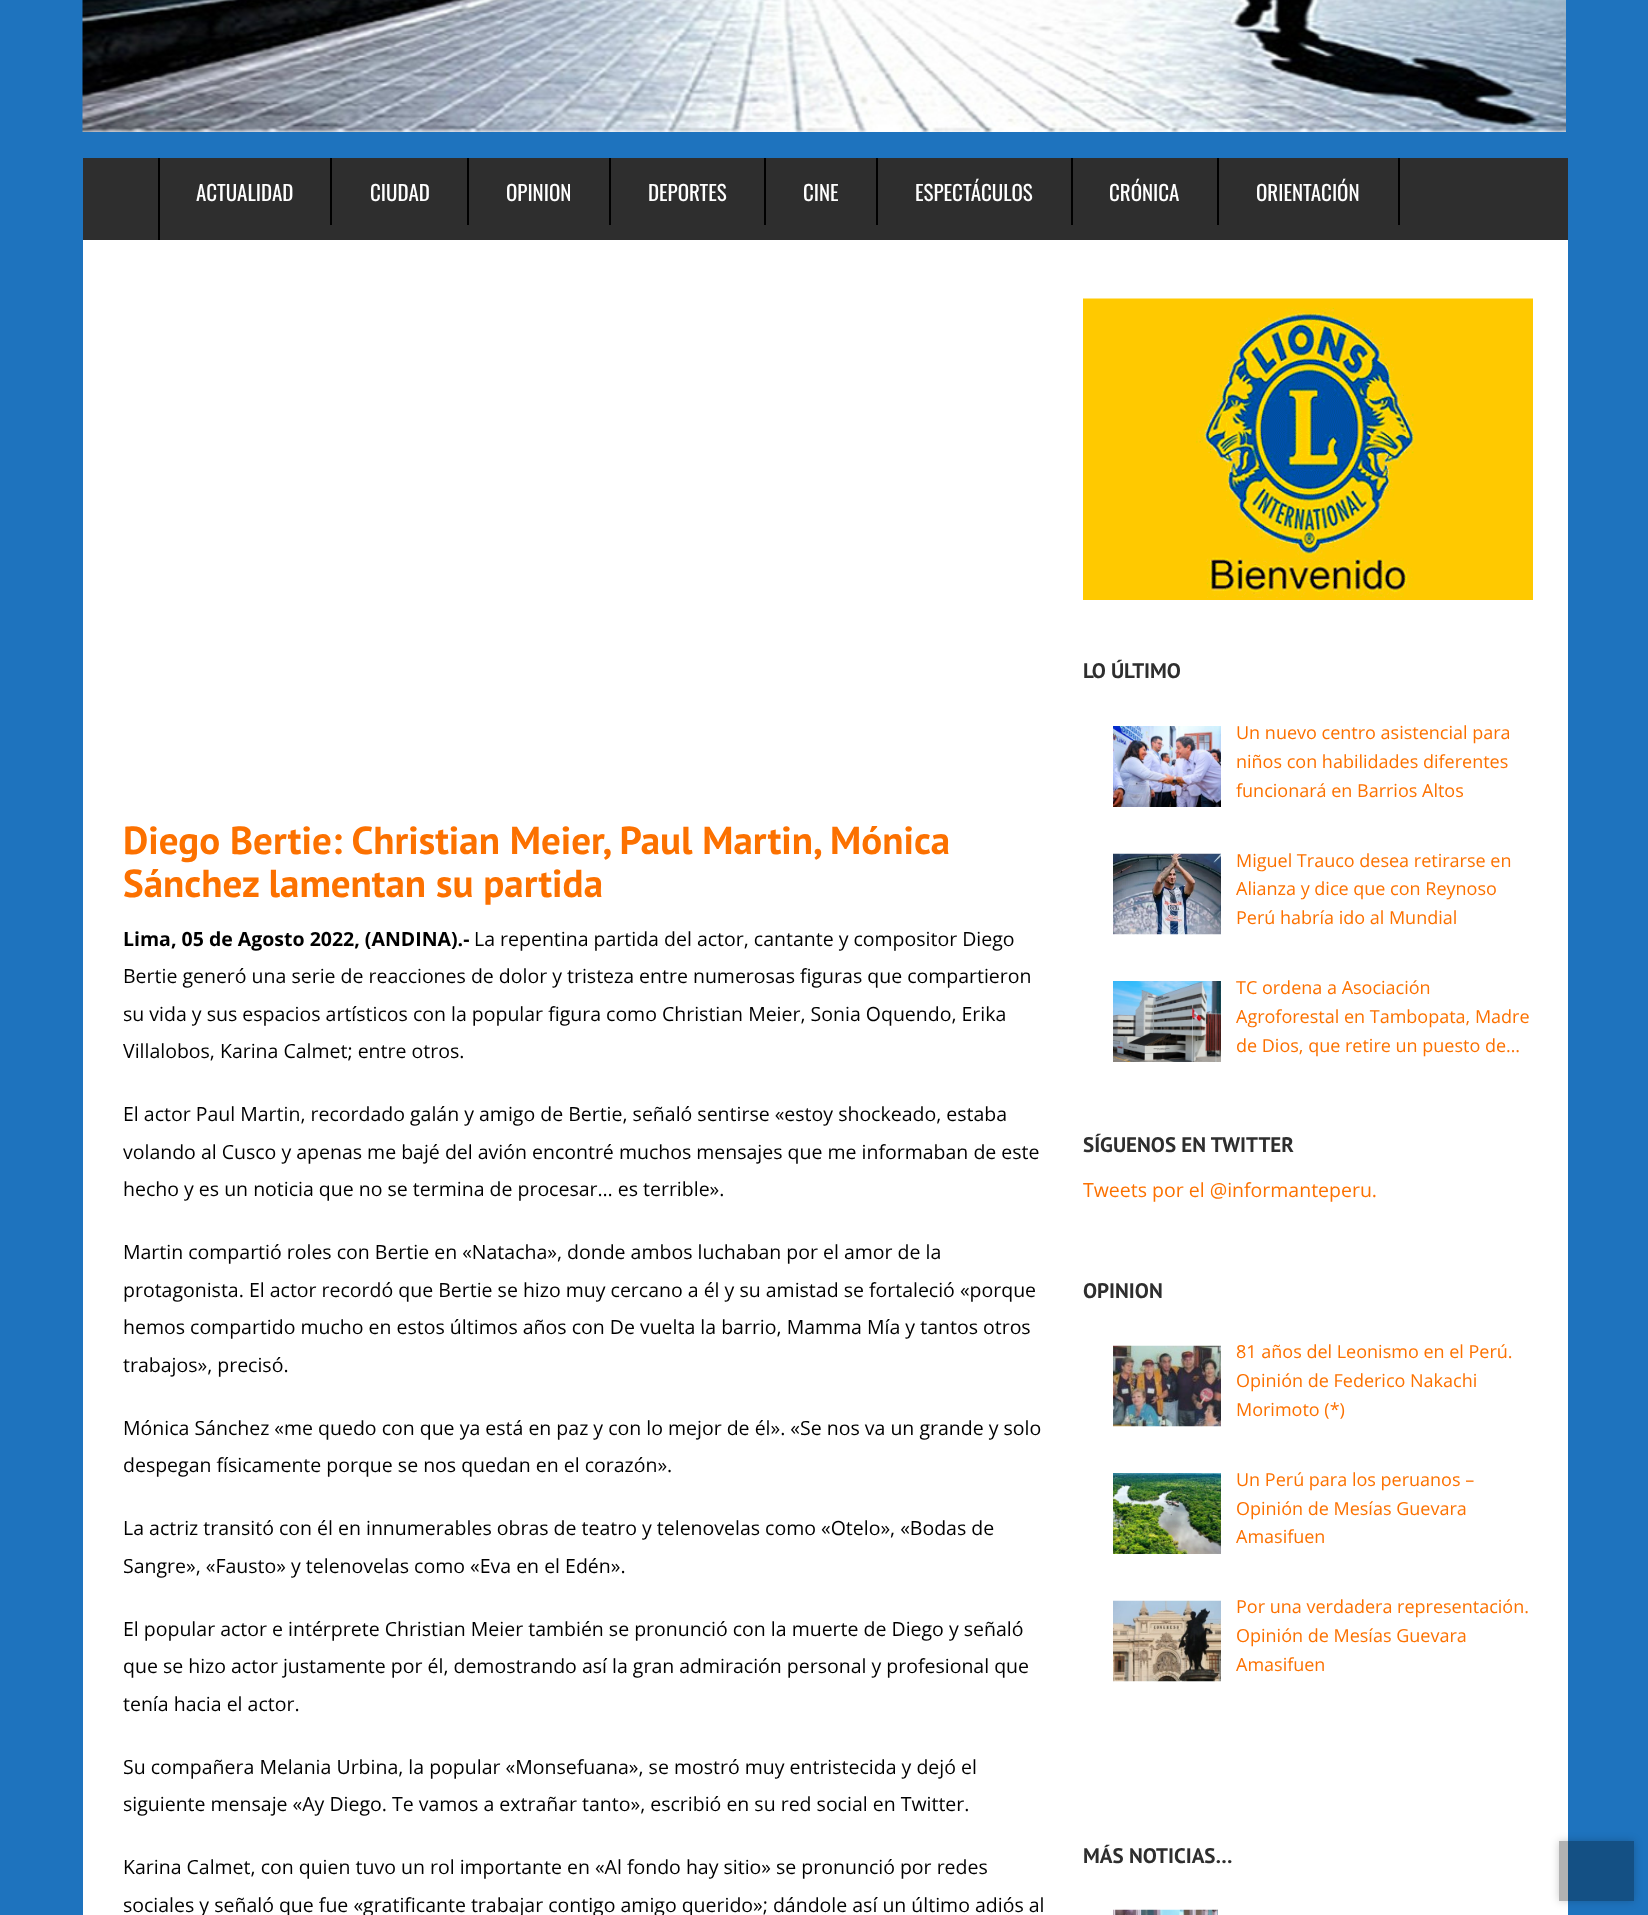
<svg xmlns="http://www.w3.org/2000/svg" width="1648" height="1915">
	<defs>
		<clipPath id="clip1"><path d="M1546 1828H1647V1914H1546ZM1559 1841H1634V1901H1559Z" clip-rule="evenodd" /></clipPath>
	</defs>
	<rect width="100%" height="100%" fill="#1E73BE" />
	<image x="82" y="0" width="1484" height="132" href="assets/img1.png" />
	<rect x="83" y="240" width="1485" height="1675" fill="#FFFFFF" />
	<rect x="83" y="158" width="1485" height="82" fill="#2E2E2E" />
	<rect x="158" y="158" width="2" height="82" fill="#000000" />
	<rect x="330" y="158" width="2" height="67" fill="#000000" />
	<text x="196" y="201" font-family="Oswald" font-size="21" fill="#FFFFFF">ACTUALIDAD</text>
	<rect x="467" y="158" width="2" height="67" fill="#000000" />
	<text x="370" y="201" font-family="Oswald" font-size="21" fill="#FFFFFF">CIUDAD</text>
	<rect x="609" y="158" width="2" height="67" fill="#000000" />
	<text x="506" y="201" font-family="Oswald" font-size="21" fill="#FFFFFF">OPINION</text>
	<rect x="764" y="158" width="2" height="67" fill="#000000" />
	<text x="648" y="201" font-family="Oswald" font-size="21" fill="#FFFFFF">DEPORTES</text>
	<rect x="876" y="158" width="2" height="67" fill="#000000" />
	<text x="803" y="201" font-family="Oswald" font-size="21" fill="#FFFFFF">CINE</text>
	<rect x="1071" y="158" width="2" height="67" fill="#000000" />
	<text x="915" y="201" font-family="Oswald" font-size="21" fill="#FFFFFF">ESPECTÁCULOS</text>
	<rect x="1217" y="158" width="2" height="67" fill="#000000" />
	<text x="1109" y="201" font-family="Oswald" font-size="21" fill="#FFFFFF">CRÓNICA</text>
	<rect x="1398" y="158" width="2" height="67" fill="#000000" />
	<text x="1256" y="201" font-family="Oswald" font-size="21" fill="#FFFFFF">ORIENTACIÓN</text>
	<g font-family="PT Sans" font-size="39" font-weight="700" fill="#FC7100">
		<text x="123" y="854">Diego Bertie: Christian Meier, Paul Martin, Mónica</text>
		<text x="123" y="897">Sánchez lamentan su partida</text>
	</g>
	<text x="123" y="946" font-family="Open Sans" font-size="19.5" font-weight="700" fill="#000000">Lima, 05 de Agosto 2022, (ANDINA).-</text>
	<g font-family="Open Sans" font-size="19.5" fill="#000000">
		<text x="474" y="946">La repentina partida del actor, cantante y compositor Diego</text>
		<text x="123" y="983">Bertie generó una serie de reacciones de dolor y tristeza entre numerosas figuras que compartieron</text>
		<text x="123" y="1021">su vida y sus espacios artísticos con la popular figura como Christian Meier, Sonia Oquendo, Erika</text>
		<text x="123" y="1058">Villalobos, Karina Calmet; entre otros.</text>
		<text x="123" y="1121">El actor Paul Martin, recordado galán y amigo de Bertie, señaló sentirse «estoy shockeado, estaba</text>
		<text x="123" y="1159">volando al Cusco y apenas me bajé del avión encontré muchos mensajes que me informaban de este</text>
		<text x="123" y="1196">hecho y es un noticia que no se termina de procesar… es terrible».</text>
		<text x="123" y="1259">Martin compartió roles con Bertie en «Natacha», donde ambos luchaban por el amor de la</text>
		<text x="123" y="1297">protagonista. El actor recordó que Bertie se hizo muy cercano a él y su amistad se fortaleció «porque</text>
		<text x="123" y="1334">hemos compartido mucho en estos últimos años con De vuelta la barrio, Mamma Mía y tantos otros</text>
		<text x="123" y="1372">trabajos», precisó.</text>
		<text x="123" y="1435">Mónica Sánchez «me quedo con que ya está en paz y con lo mejor de él». «Se nos va un grande y solo</text>
		<text x="123" y="1472">despegan físicamente porque se nos quedan en el corazón».</text>
		<text x="123" y="1535">La actriz transitó con él en innumerables obras de teatro y telenovelas como «Otelo», «Bodas de</text>
		<text x="123" y="1573">Sangre», «Fausto» y telenovelas como «Eva en el Edén».</text>
		<text x="123" y="1636">El popular actor e intérprete Christian Meier también se pronunció con la muerte de Diego y señaló</text>
		<text x="123" y="1673">que se hizo actor justamente por él, demostrando así la gran admiración personal y profesional que</text>
		<text x="123" y="1711">tenía hacia el actor.</text>
		<text x="123" y="1774">Su compañera Melania Urbina, la popular «Monsefuana», se mostró muy entristecida y dejó el</text>
		<text x="123" y="1811">siguiente mensaje «Ay Diego. Te vamos a extrañar tanto», escribió en su red social en Twitter.</text>
		<text x="123" y="1874">Karina Calmet, con quien tuvo un rol importante en «Al fondo hay sitio» se pronunció por redes</text>
		<text x="123" y="1912">sociales y señaló que fue «gratificante trabajar contigo amigo querido»; dándole así un último adiós al</text>
	</g>
	<image x="1083" y="298" width="450" height="302" href="assets/img2.png" />
	<text x="1083" y="678" font-family="PT Sans" font-size="21" font-weight="700" fill="#2E2E2E">LO ÚLTIMO</text>
	<image x="1113" y="726" width="108" height="81" href="assets/img3.png" />
	<g font-family="Open Sans" font-size="18" fill="#FC7100">
		<text x="1236" y="739">Un nuevo centro asistencial para</text>
		<text x="1236" y="768">niños con habilidades diferentes</text>
		<text x="1236" y="797">funcionará en Barrios Altos</text>
	</g>
	<image x="1113" y="853" width="108" height="82" href="assets/img4.png" />
	<g font-family="Open Sans" font-size="18" fill="#FC7100">
		<text x="1236" y="867">Miguel Trauco desea retirarse en</text>
		<text x="1236" y="895">Alianza y dice que con Reynoso</text>
		<text x="1236" y="924">Perú habría ido al Mundial</text>
	</g>
	<image x="1113" y="981" width="108" height="81" href="assets/img5.png" />
	<g font-family="Open Sans" font-size="18" fill="#FC7100">
		<text x="1236" y="994">TC ordena a Asociación</text>
		<text x="1236" y="1023">Agroforestal en Tambopata, Madre</text>
		<text x="1236" y="1052">de Dios, que retire un puesto de…</text>
	</g>
	<text x="1083" y="1152" font-family="PT Sans" font-size="21" font-weight="700" fill="#2E2E2E">SÍGUENOS EN TWITTER</text>
	<text x="1083" y="1197" font-family="Open Sans" font-size="19.5" fill="#FC7100">Tweets por el @informanteperu.</text>
	<text x="1083" y="1298" font-family="PT Sans" font-size="21" font-weight="700" fill="#2E2E2E">OPINION</text>
	<image x="1113" y="1345" width="108" height="82" href="assets/img6.png" />
	<g font-family="Open Sans" font-size="18" fill="#FC7100">
		<text x="1236" y="1358">81 años del Leonismo en el Perú.</text>
		<text x="1236" y="1387">Opinión de Federico Nakachi</text>
		<text x="1236" y="1416">Morimoto (*)</text>
	</g>
	<image x="1113" y="1473" width="108" height="81" href="assets/img7.png" />
	<g font-family="Open Sans" font-size="18" fill="#FC7100">
		<text x="1236" y="1486">Un Perú para los peruanos –</text>
		<text x="1236" y="1515">Opinión de Mesías Guevara</text>
		<text x="1236" y="1543">Amasifuen</text>
	</g>
	<image x="1113" y="1600" width="108" height="82" href="assets/img8.png" />
	<g font-family="Open Sans" font-size="18" fill="#FC7100">
		<text x="1236" y="1613">Por una verdadera representación.</text>
		<text x="1236" y="1642">Opinión de Mesías Guevara</text>
		<text x="1236" y="1671">Amasifuen</text>
	</g>
	<text x="1083" y="1863" font-family="PT Sans" font-size="21" font-weight="700" fill="#2E2E2E">MÁS NOTICIAS…</text>
	<image x="1113" y="1909" width="105" height="6" href="assets/img9.png" />
	<g clip-path="url(#clip1)">
		<rect x="1559" y="1841" width="75" height="60" fill="#000000" fill-opacity="0.2" filter="blur(4px)" />
	</g>
	<rect x="1559" y="1841" width="75" height="60" fill="#000000" fill-opacity="0.3" />
</svg>
